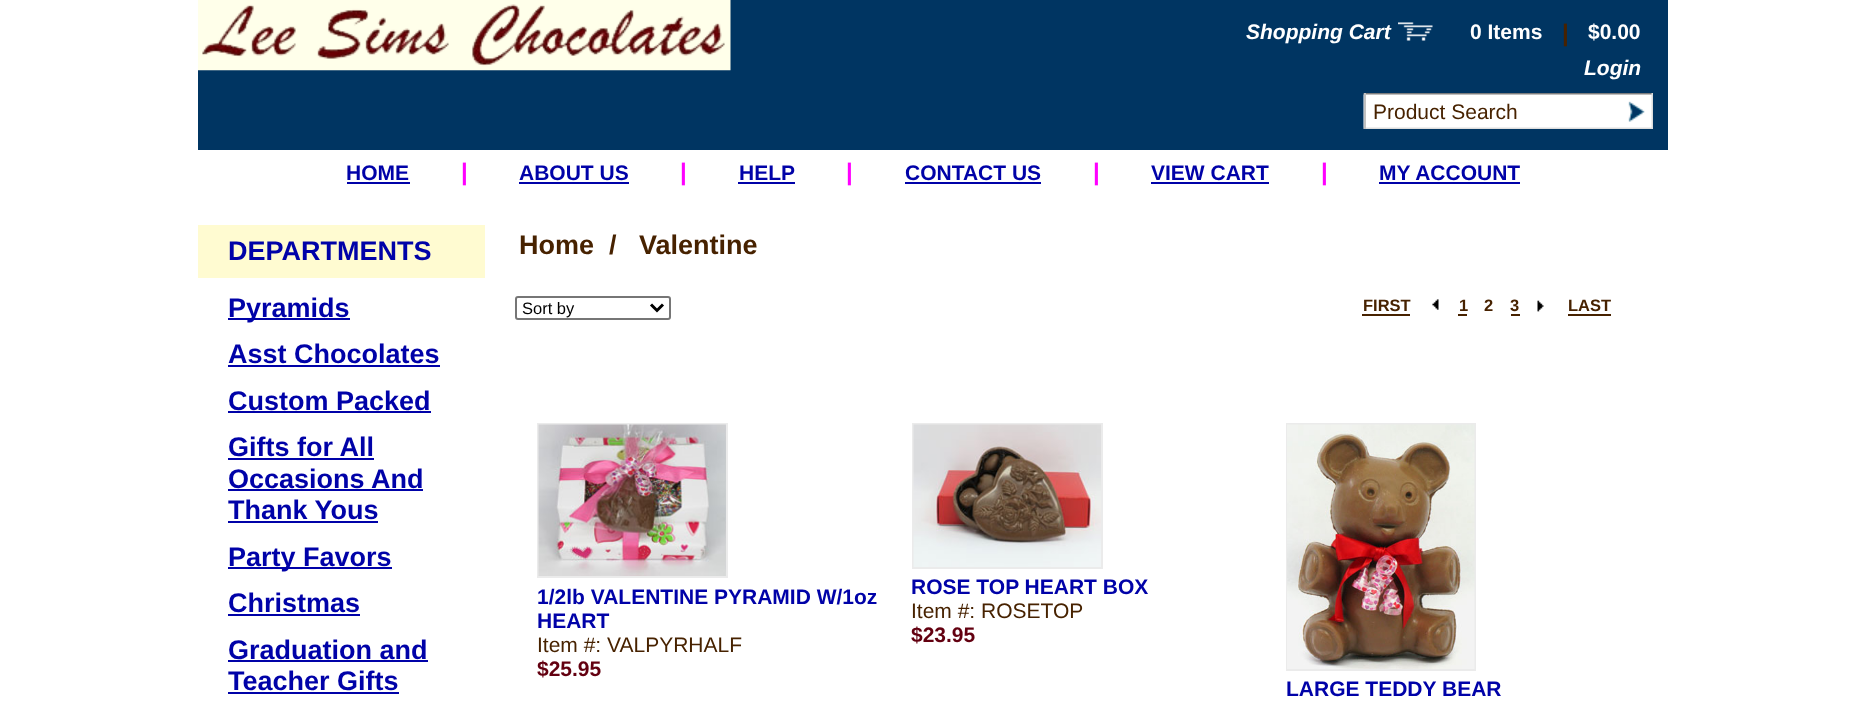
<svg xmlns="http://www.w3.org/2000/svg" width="1866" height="703">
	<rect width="100%" height="100%" fill="#FFFFFF" />
	<rect x="198" y="0" width="1470" height="150" fill="#003562" />
	<image x="198" y="0" width="533" height="71" href="assets/img1.png" />
	<text x="1246" y="39" font-family="Liberation Sans" font-size="21" font-weight="700" font-style="italic" fill="#FFFFFF">Shopping Cart</text>
	<image x="1398" y="22" width="35" height="19" href="assets/img2.png" />
	<text x="1470" y="39" font-family="Liberation Sans" font-size="21" font-weight="700" fill="#FFFFFF">0 Items</text>
	<text x="1562" y="41" font-family="Liberation Sans" font-size="24" font-weight="700" fill="#472200">|</text>
	<text x="1588" y="39" font-family="Liberation Sans" font-size="21" font-weight="700" fill="#FFFFFF">$0.00</text>
	<text x="1584" y="75" font-family="Liberation Sans" font-size="21" font-weight="700" font-style="italic" fill="#FFFFFF">Login</text>
	<image x="1363" y="93" width="290" height="36" href="assets/img3.png" />
	<rect x="1364" y="93" width="2" height="36" fill="#C2C2C2" />
	<text x="1373" y="119" font-family="Liberation Sans" font-size="21" fill="#472200">Product Search</text>
	<image x="1628" y="93" width="25" height="35" href="assets/img4.png" />
	<text x="346" y="180" font-family="Liberation Sans" font-size="21" font-weight="700" fill="#0002A8">HOME</text>
	<rect x="347" y="182" width="63" height="2" fill="#0002A8" />
	<text x="461" y="180" font-family="Liberation Sans" font-size="24" font-weight="700" fill="#FF00FF">|</text>
	<text x="519" y="180" font-family="Liberation Sans" font-size="21" font-weight="700" fill="#0002A8">ABOUT US</text>
	<rect x="519" y="182" width="110" height="2" fill="#0002A8" />
	<text x="680" y="180" font-family="Liberation Sans" font-size="24" font-weight="700" fill="#FF00FF">|</text>
	<text x="739" y="180" font-family="Liberation Sans" font-size="21" font-weight="700" fill="#0002A8">HELP</text>
	<rect x="738" y="182" width="57" height="2" fill="#0002A8" />
	<text x="846" y="180" font-family="Liberation Sans" font-size="24" font-weight="700" fill="#FF00FF">|</text>
	<text x="905" y="180" font-family="Liberation Sans" font-size="21" font-weight="700" fill="#0002A8">CONTACT US</text>
	<rect x="905" y="182" width="136" height="2" fill="#0002A8" />
	<text x="1093" y="180" font-family="Liberation Sans" font-size="24" font-weight="700" fill="#FF00FF">|</text>
	<text x="1151" y="180" font-family="Liberation Sans" font-size="21" font-weight="700" fill="#0002A8">VIEW CART</text>
	<rect x="1151" y="182" width="118" height="2" fill="#0002A8" />
	<text x="1321" y="180" font-family="Liberation Sans" font-size="24" font-weight="700" fill="#FF00FF">|</text>
	<text x="1379" y="180" font-family="Liberation Sans" font-size="21" font-weight="700" fill="#0002A8">MY ACCOUNT</text>
	<rect x="1379" y="182" width="141" height="2" fill="#0002A8" />
	<rect x="198" y="225" width="287" height="53" fill="#FFFBD1" />
	<text x="228" y="260" font-family="Liberation Sans" font-size="27" font-weight="700" fill="#0002A8">DEPARTMENTS</text>
	<rect x="228" y="318" width="122" height="2" fill="#0002A8" />
	<g font-family="Liberation Sans" font-size="27" font-weight="700" fill="#0002A8">
		<text x="228" y="317">Pyramids</text>
		<text x="228" y="363">Asst Chocolates</text>
	</g>
	<rect x="228" y="365" width="212" height="2" fill="#0002A8" />
	<text x="228" y="410" font-family="Liberation Sans" font-size="27" font-weight="700" fill="#0002A8">Custom Packed</text>
	<rect x="228" y="411" width="203" height="2" fill="#0002A8" />
	<text x="228" y="456" font-family="Liberation Sans" font-size="27" font-weight="700" fill="#0002A8">Gifts for All</text>
	<rect x="228" y="458" width="146" height="2" fill="#0002A8" />
	<text x="228" y="488" font-family="Liberation Sans" font-size="27" font-weight="700" fill="#0002A8">Occasions And</text>
	<rect x="228" y="489" width="195" height="2" fill="#0002A8" />
	<text x="228" y="519" font-family="Liberation Sans" font-size="27" font-weight="700" fill="#0002A8">Thank Yous</text>
	<rect x="228" y="521" width="150" height="2" fill="#0002A8" />
	<rect x="228" y="567" width="164" height="2" fill="#0002A8" />
	<g font-family="Liberation Sans" font-size="27" font-weight="700" fill="#0002A8">
		<text x="228" y="566">Party Favors</text>
		<text x="228" y="612">Christmas</text>
	</g>
	<rect x="228" y="614" width="132" height="2" fill="#0002A8" />
	<text x="228" y="659" font-family="Liberation Sans" font-size="27" font-weight="700" fill="#0002A8">Graduation and</text>
	<rect x="228" y="660" width="200" height="2" fill="#0002A8" />
	<text x="228" y="690" font-family="Liberation Sans" font-size="27" font-weight="700" fill="#0002A8">Teacher Gifts</text>
	<rect x="228" y="692" width="171" height="2" fill="#0002A8" />
	<g font-family="Liberation Sans" font-size="27" font-weight="700" fill="#472200">
		<text x="519" y="254">Home</text>
		<text x="609" y="254">/</text>
		<text x="639" y="254">Valentine</text>
	</g>
	<rect x="516" y="297" width="154" height="22" rx="2" fill="none" stroke="#767676" stroke-width="2" />
	<path d="M651 304.5L657 310.5L663 304.5" fill="none" stroke="#000000" stroke-width="3" />
	<text x="522" y="314" font-family="Liberation Sans" font-size="16.5" fill="#000000">Sort by</text>
	<text x="1363" y="311" font-family="Liberation Sans" font-size="16.5" font-weight="700" fill="#472200">FIRST</text>
	<rect x="1362" y="314" width="48" height="2" fill="#472200" />
	<image x="1432" y="299" width="7" height="11" href="assets/img5.png" />
	<text x="1459" y="311" font-family="Liberation Sans" font-size="16.5" font-weight="700" fill="#472200">1</text>
	<rect x="1458" y="314" width="9" height="2" fill="#472200" />
	<g font-family="Liberation Sans" font-size="16.5" font-weight="700" fill="#472200">
		<text x="1484" y="311">2</text>
		<text x="1510" y="311">3</text>
	</g>
	<rect x="1511" y="314" width="9" height="2" fill="#472200" />
	<image x="1537" y="300" width="7" height="12" href="assets/img6.png" />
	<text x="1568" y="311" font-family="Liberation Sans" font-size="16.5" font-weight="700" fill="#472200">LAST</text>
	<rect x="1568" y="314" width="43" height="2" fill="#472200" />
	<rect x="538" y="424" width="189" height="153" fill="none" stroke="#EBEBEB" stroke-width="2" />
	<image x="538" y="424" width="188" height="152" href="assets/img7.png" />
	<g font-family="Liberation Sans" font-size="21" font-weight="700" fill="#0002A8">
		<text x="537" y="604">1/2lb VALENTINE PYRAMID W/1oz</text>
		<text x="537" y="628">HEART</text>
	</g>
	<text x="537" y="652" font-family="Liberation Sans" font-size="21" fill="#472200">Item #: VALPYRHALF</text>
	<text x="537" y="676" font-family="Liberation Sans" font-size="21" font-weight="700" fill="#630010">$25.95</text>
	<rect x="913" y="424" width="189" height="144" fill="none" stroke="#EBEBEB" stroke-width="2" />
	<image x="913" y="424" width="188" height="143" href="assets/img8.png" />
	<text x="911" y="594" font-family="Liberation Sans" font-size="21" font-weight="700" fill="#0002A8">ROSE TOP HEART BOX</text>
	<text x="911" y="618" font-family="Liberation Sans" font-size="21" fill="#472200">Item #: ROSETOP</text>
	<text x="911" y="642" font-family="Liberation Sans" font-size="21" font-weight="700" fill="#630010">$23.95</text>
	<rect x="1287" y="424" width="188" height="246" fill="none" stroke="#EBEBEB" stroke-width="2" />
	<image x="1287" y="424" width="188" height="245" href="assets/img9.png" />
	<text x="1286" y="696" font-family="Liberation Sans" font-size="21" font-weight="700" fill="#0002A8">LARGE TEDDY BEAR</text>
</svg>
